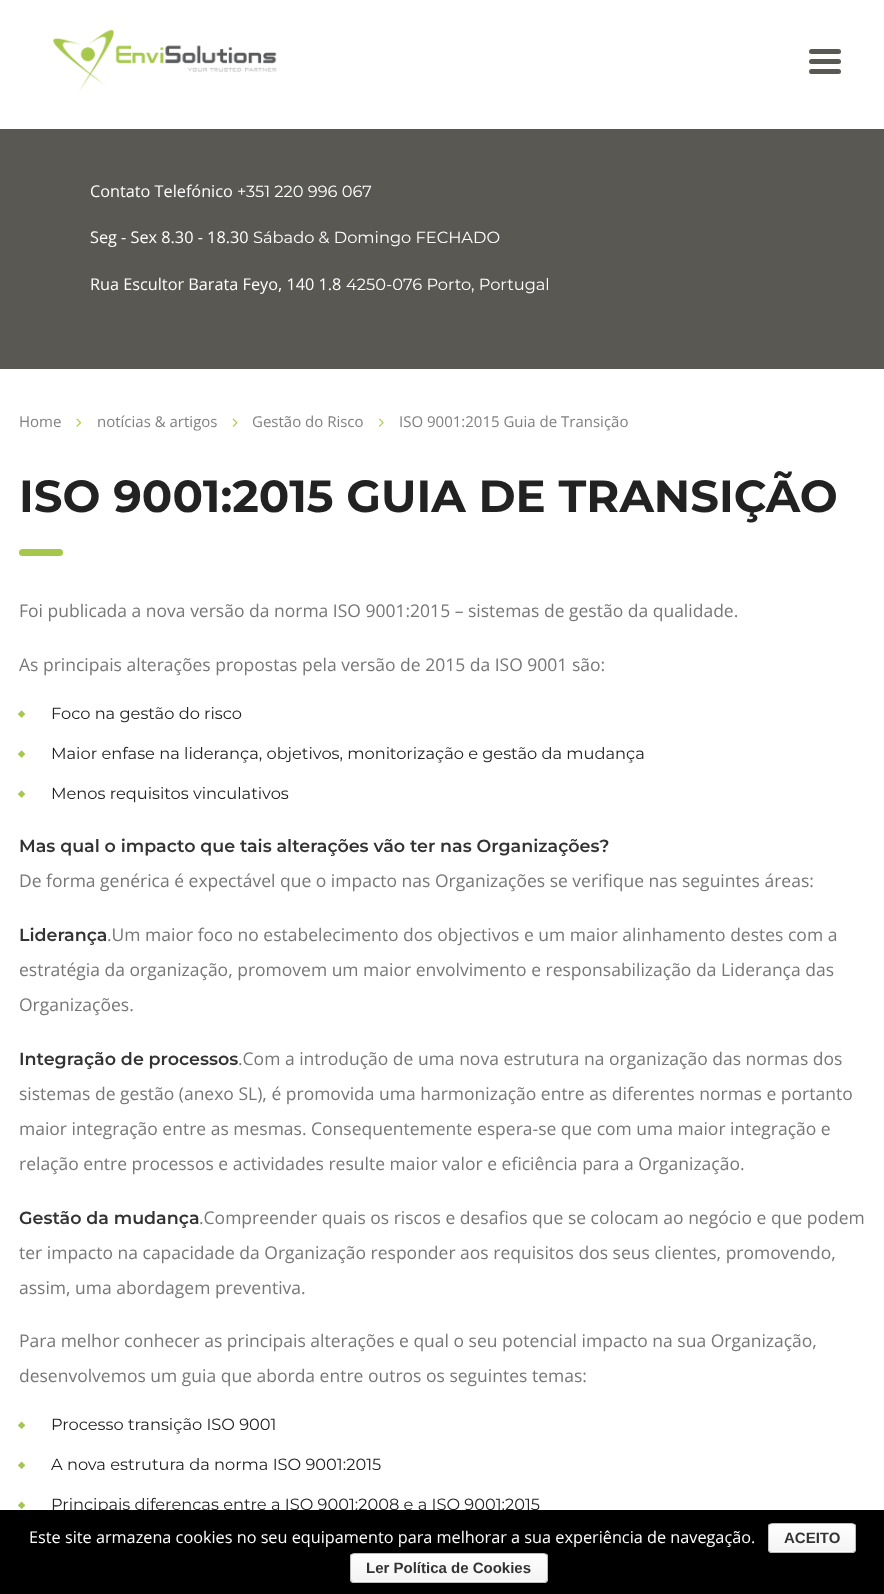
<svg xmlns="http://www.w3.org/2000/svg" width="884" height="1594">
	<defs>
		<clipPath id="clip1"><rect x="768" y="1523" width="88" height="30" rx="4" /></clipPath>
		<linearGradient id="g1" gradientUnits="userSpaceOnUse" x1="812" y1="1524" x2="812" y2="1551"><stop offset="0" stop-color="#FEFEFE" /><stop offset="1" stop-color="#F4F4F4" /></linearGradient>
		<linearGradient id="g2" gradientUnits="userSpaceOnUse" x1="812" y1="1551" x2="812" y2="1579"><stop offset="0" stop-color="#FEFEFE" /><stop offset="1" stop-color="#F4F4F4" /></linearGradient>
		<clipPath id="clip2"><rect x="350" y="1553" width="198" height="30" rx="4" /></clipPath>
		<linearGradient id="g3" gradientUnits="userSpaceOnUse" x1="449" y1="1554" x2="449" y2="1581"><stop offset="0" stop-color="#FEFEFE" /><stop offset="1" stop-color="#F4F4F4" /></linearGradient>
		<linearGradient id="g4" gradientUnits="userSpaceOnUse" x1="449" y1="1581" x2="449" y2="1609"><stop offset="0" stop-color="#FEFEFE" /><stop offset="1" stop-color="#F4F4F4" /></linearGradient>
	</defs>
	<rect width="100%" height="100%" fill="#FFFFFF" />
	<image x="53" y="29" width="224" height="62" href="assets/img1.png" />
	<rect x="809" y="59" width="32" height="5" rx="2.5" fill="#595853" />
	<rect x="809" y="49" width="32" height="5" rx="2.5" fill="#595853" />
	<rect x="809" y="69" width="32" height="5" rx="2.5" fill="#595853" />
	<rect x="0" y="129" width="884" height="240" fill="#595853" />
	<text x="90" y="197" font-family="Open Sans" font-size="16.25" fill="#FFFFFF">Contato Telefónico</text>
	<text x="237" y="197" font-family="Montserrat" font-size="16.25" fill="#FFFFFF">+351 220 996 067</text>
	<text x="90" y="243" font-family="Open Sans" font-size="16.25" fill="#FFFFFF">Seg - Sex 8.30 - 18.30</text>
	<text x="253" y="243" font-family="Montserrat" font-size="16.25" fill="#FFFFFF">Sábado &amp; Domingo FECHADO</text>
	<text x="90" y="290" font-family="Open Sans" font-size="16.25" fill="#FFFFFF">Rua Escultor Barata Feyo, 140 1.8</text>
	<text x="346" y="290" font-family="Montserrat" font-size="16.25" fill="#FFFFFF">4250-076 Porto, Portugal</text>
	<text x="19" y="427" font-family="Open Sans" font-size="15" fill="#808080">Home</text>
	<image x="76" y="418" width="6" height="9" href="assets/img2.png" />
	<text x="97" y="427" font-family="Open Sans" font-size="15" fill="#808080">notícias &amp; artigos</text>
	<image x="232" y="418" width="6" height="9" href="assets/img3.png" />
	<text x="252" y="427" font-family="Open Sans" font-size="15" fill="#808080">Gestão do Risco</text>
	<image x="378" y="418" width="6" height="9" href="assets/img4.png" />
	<text x="399" y="427" font-family="Open Sans" font-size="15" fill="#808080">ISO 9001:2015 Guia de Transição</text>
	<text x="19" y="512" font-family="Montserrat" font-size="45" font-weight="700" fill="#222222">ISO 9001:2015 GUIA DE TRANSIÇÃO</text>
	<rect x="19" y="549" width="44" height="7" rx="3.5" fill="#A5C84A" />
	<g font-family="Open Sans" font-size="17.5" fill="#777777">
		<text x="19" y="617">Foi publicada a nova versão da norma ISO 9001:2015 – sistemas de gestão da qualidade.</text>
		<text x="19" y="671">As principais alterações propostas pela versão de 2015 da ISO 9001 são:</text>
	</g>
	<image x="17" y="710" width="9" height="8" href="assets/img5.png" />
	<text x="51" y="719" font-family="Montserrat" font-size="16.25" fill="#222222">Foco na gestão do risco</text>
	<image x="17" y="750" width="9" height="8" href="assets/img5.png" />
	<text x="51" y="759" font-family="Montserrat" font-size="16.25" fill="#222222">Maior enfase na liderança, objetivos, monitorização e gestão da mudança</text>
	<image x="17" y="790" width="9" height="8" href="assets/img5.png" />
	<text x="51" y="799" font-family="Montserrat" font-size="16.25" fill="#222222">Menos requisitos vinculativos</text>
	<text x="19" y="852" font-family="Montserrat" font-size="17.5" font-weight="600" fill="#333333">Mas qual o impacto que tais alterações vão ter nas Organizações?</text>
	<text x="19" y="887" font-family="Open Sans" font-size="17.5" fill="#777777">De forma genérica é expectável que o impacto nas Organizações se verifique nas seguintes áreas:</text>
	<text x="19" y="941" font-family="Montserrat" font-size="17.5" font-weight="600" fill="#333333">Liderança</text>
	<g font-family="Open Sans" font-size="17.5" fill="#777777">
		<text x="107" y="941">.Um maior foco no estabelecimento dos objectivos e um maior alinhamento destes com a</text>
		<text x="19" y="976">estratégia da organização, promovem um maior envolvimento e responsabilização da Liderança das</text>
		<text x="19" y="1011">Organizações.</text>
	</g>
	<text x="19" y="1065" font-family="Montserrat" font-size="17.5" font-weight="600" fill="#333333">Integração de processos</text>
	<g font-family="Open Sans" font-size="17.5" fill="#777777">
		<text x="238" y="1065">.Com a introdução de uma nova estrutura na organização das normas dos</text>
		<text x="19" y="1100">sistemas de gestão (anexo SL), é promovida uma harmonização entre as diferentes normas e portanto</text>
		<text x="19" y="1135">maior integração entre as mesmas. Consequentemente espera-se que com uma maior integração e</text>
		<text x="19" y="1170">relação entre processos e actividades resulte maior valor e eficiência para a Organização.</text>
	</g>
	<text x="19" y="1224" font-family="Montserrat" font-size="17.5" font-weight="600" fill="#333333">Gestão da mudança</text>
	<g font-family="Open Sans" font-size="17.5" fill="#777777">
		<text x="199" y="1224">.Compreender quais os riscos e desafios que se colocam ao negócio e que podem</text>
		<text x="19" y="1259">ter impacto na capacidade da Organização responder aos requisitos dos seus clientes, promovendo,</text>
		<text x="19" y="1294">assim, uma abordagem preventiva.</text>
		<text x="19" y="1347">Para melhor conhecer as principais alterações e qual o seu potencial impacto na sua Organização,</text>
		<text x="19" y="1382">desenvolvemos um guia que aborda entre outros os seguintes temas:</text>
	</g>
	<image x="17" y="1421" width="9" height="8" href="assets/img6.png" />
	<text x="51" y="1430" font-family="Montserrat" font-size="16.25" fill="#222222">Processo transição ISO 9001</text>
	<image x="17" y="1461" width="9" height="8" href="assets/img6.png" />
	<text x="51" y="1470" font-family="Montserrat" font-size="16.25" fill="#222222">A nova estrutura da norma ISO 9001:2015</text>
	<image x="17" y="1501" width="9" height="8" href="assets/img6.png" />
	<text x="51" y="1510" font-family="Montserrat" font-size="16.25" fill="#222222">Principais diferenças entre a ISO 9001:2008 e a ISO 9001:2015</text>
	<rect x="0" y="1510" width="884" height="84" fill="#000000" />
	<text x="29" y="1543" font-family="Open Sans" font-size="16.25" fill="#FFFFFF">Este site armazena cookies no seu equipamento para melhorar a sua experiência de navegação.</text>
	<g clip-path="url(#clip1)">
		<rect x="768" y="1524" width="88" height="27" fill="url(#g1)" />
		<rect x="768" y="1551" width="88" height="2" fill="url(#g2)" />
	</g>
	<rect x="768.5" y="1523.5" width="87" height="29" rx="3.5" fill="none" stroke="#BBBBBB" />
	<text x="784" y="1543" font-family="Liberation Sans" font-size="15" font-weight="700" fill="#333333">ACEITO</text>
	<g clip-path="url(#clip2)">
		<rect x="350" y="1554" width="198" height="27" fill="url(#g3)" />
		<rect x="350" y="1581" width="198" height="2" fill="url(#g4)" />
	</g>
	<rect x="350.5" y="1553.5" width="197" height="29" rx="3.5" fill="none" stroke="#BBBBBB" />
	<text x="366" y="1573" font-family="Liberation Sans" font-size="15" font-weight="700" fill="#333333">Ler Política de Cookies</text>
</svg>
